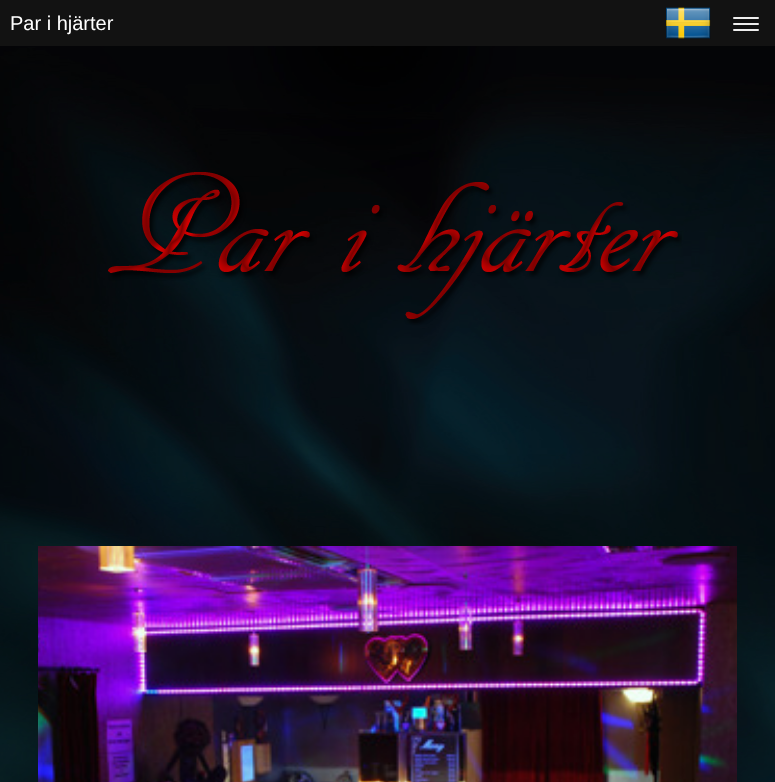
<svg xmlns="http://www.w3.org/2000/svg" width="775" height="782">
	<rect width="100%" height="100%" fill="#FFFFFF" />
	<image x="0" y="46" width="775" height="736" href="assets/img1.png" />
	<rect x="0" y="0" width="775" height="46" fill="#121212" />
	<text x="10" y="30" font-family="Liberation Sans" font-size="20" fill="#FFFFFF">Par i hjärter</text>
	<image x="666" y="7" width="45" height="32" href="assets/img2.png" />
	<rect x="733" y="17" width="26" height="2" rx="1" fill="#EEEEEE" />
	<rect x="733" y="23" width="26" height="2" rx="1" fill="#EEEEEE" />
	<rect x="733" y="29" width="26" height="2" rx="1" fill="#EEEEEE" />
	<image x="108" y="172" width="574" height="153" href="assets/img3.png" />
	<image x="38" y="546" width="699" height="236" href="assets/img4.png" />
</svg>
